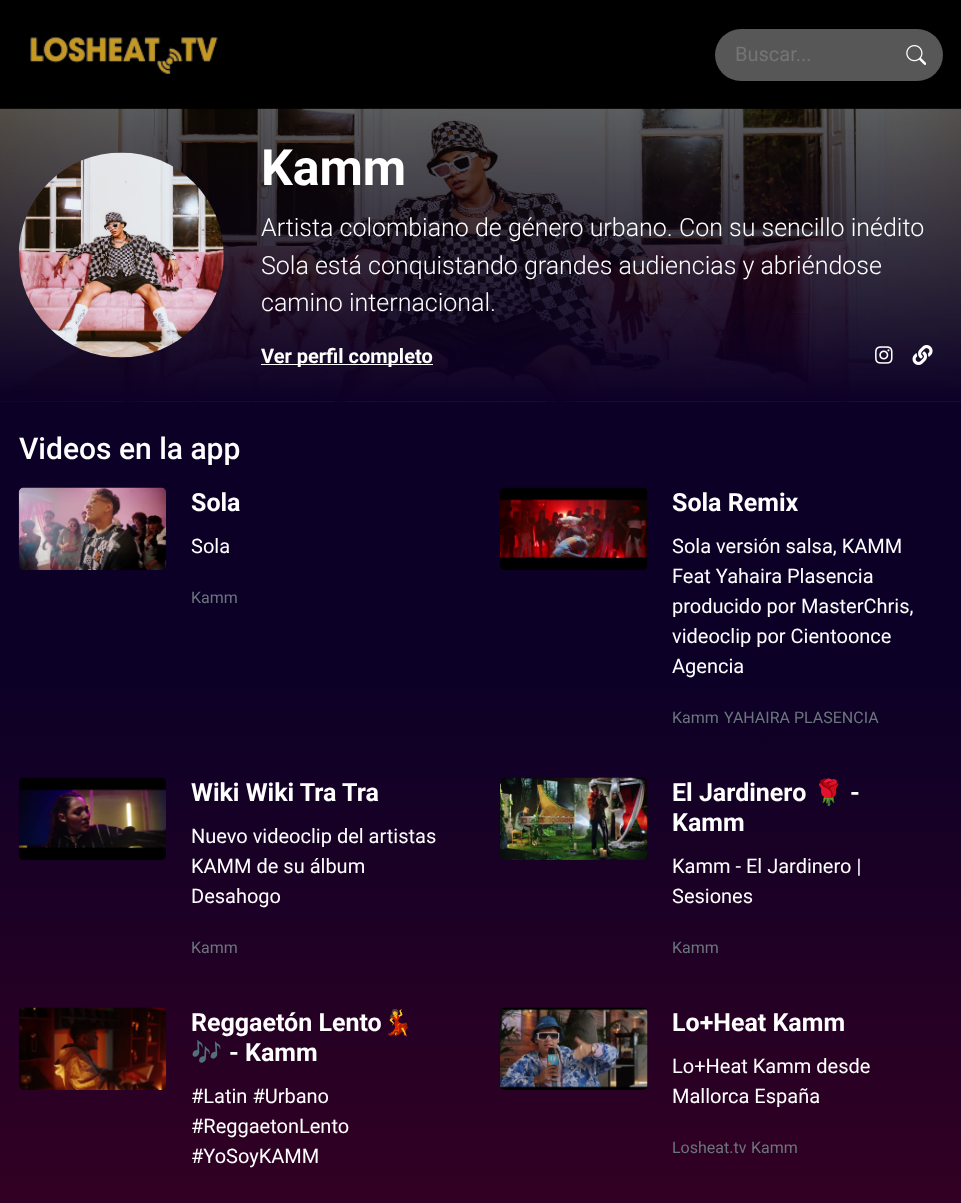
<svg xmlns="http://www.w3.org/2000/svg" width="961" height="1203">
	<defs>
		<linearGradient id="g1" gradientUnits="userSpaceOnUse" x1="481" y1="0" x2="481" y2="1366"><stop offset="0" stop-color="#0D0027" /><stop offset="0.5" stop-color="#0D0027" /><stop offset="1" stop-color="#3E0022" /></linearGradient>
	</defs>
	<rect width="100%" height="100%" fill="#FFFFFF" />
	<rect x="0" y="401" width="961" height="802" fill="url(#g1)" />
	<rect x="0" y="0" width="961" height="109" fill="#000000" />
	<image x="30" y="37" width="188" height="37" href="assets/img1.png" />
	<rect x="715" y="29" width="228" height="52" rx="26" fill="#575757" />
	<text x="735" y="61" font-family="Roboto" font-size="20" fill="#757575">Buscar...</text>
	<image x="906" y="45" width="20" height="20" href="assets/img2.png" />
	<image x="0" y="108" width="961" height="294" href="assets/img3.png" />
	<image x="18" y="152" width="206" height="206" href="assets/img4.png" />
	<text x="261" y="185" font-family="Roboto" font-size="50" font-weight="700" fill="#FFFFFF">Kamm</text>
	<g font-family="Roboto" font-size="25" font-weight="300" fill="#FFFFFF">
		<text x="261" y="236">Artista colombiano de género urbano. Con su sencillo inédito</text>
		<text x="261" y="274">Sola está conquistando grandes audiencias y abriéndose</text>
		<text x="261" y="311">camino internacional.</text>
	</g>
	<rect x="261" y="364" width="172" height="1" fill="#FFFFFF" />
	<text x="261" y="363" font-family="Roboto" font-size="20" font-weight="700" fill="#FFFFFF">Ver perfil completo</text>
	<image x="875" y="346" width="18" height="18" href="assets/img5.png" />
	<image x="912" y="345" width="21" height="20" href="assets/img6.png" />
	<text x="19" y="459" font-family="Roboto" font-size="30" font-weight="500" fill="#FFFFFF">Videos en la app</text>
	<image x="18" y="487" width="149" height="83" href="assets/img7.png" />
	<text x="191" y="511" font-family="Roboto" font-size="25" font-weight="700" fill="#FFFFFF">Sola</text>
	<text x="191" y="553" font-family="Roboto" font-size="20" fill="#FFFFFF">Sola</text>
	<text x="191" y="603" font-family="Roboto" font-size="16" fill="#6C757D">Kamm</text>
	<image x="500" y="487" width="148" height="83" href="assets/img8.png" />
	<text x="672" y="511" font-family="Roboto" font-size="25" font-weight="700" fill="#FFFFFF">Sola Remix</text>
	<g font-family="Roboto" font-size="20" fill="#FFFFFF">
		<text x="672" y="553">Sola versión salsa, KAMM</text>
		<text x="672" y="583">Feat Yahaira Plasencia</text>
		<text x="672" y="613">producido por MasterChris,</text>
		<text x="672" y="643">videoclip por Cientoonce</text>
		<text x="672" y="673">Agencia</text>
	</g>
	<g font-family="Roboto" font-size="16" fill="#6C757D">
		<text x="672" y="723">Kamm</text>
		<text x="724" y="723">YAHAIRA PLASENCIA</text>
	</g>
	<image x="18" y="777" width="148" height="83" href="assets/img9.png" />
	<text x="191" y="801" font-family="Roboto" font-size="25" font-weight="700" fill="#FFFFFF">Wiki Wiki Tra Tra</text>
	<g font-family="Roboto" font-size="20" fill="#FFFFFF">
		<text x="191" y="843">Nuevo videoclip del artistas</text>
		<text x="191" y="873">KAMM de su álbum</text>
		<text x="191" y="903">Desahogo</text>
	</g>
	<text x="191" y="953" font-family="Roboto" font-size="16" fill="#6C757D">Kamm</text>
	<image x="500" y="777" width="148" height="83" href="assets/img10.png" />
	<text x="672" y="801" font-family="Roboto" font-size="25" font-weight="700" fill="#FFFFFF">El Jardinero</text>
	<text x="813" y="801" font-family="Noto Color Emoji" font-size="25" font-weight="700" fill="#FFFFFF">🌹</text>
	<g font-family="Roboto" font-size="25" font-weight="700" fill="#FFFFFF">
		<text x="850" y="801">-</text>
		<text x="672" y="831">Kamm</text>
	</g>
	<g font-family="Roboto" font-size="20" fill="#FFFFFF">
		<text x="672" y="873">Kamm - El Jardinero |</text>
		<text x="672" y="903">Sesiones</text>
	</g>
	<text x="672" y="953" font-family="Roboto" font-size="16" fill="#6C757D">Kamm</text>
	<image x="19" y="1007" width="148" height="83" href="assets/img11.png" />
	<text x="191" y="1031" font-family="Roboto" font-size="25" font-weight="700" fill="#FFFFFF">Reggaetón Lento</text>
	<g font-family="Noto Color Emoji" font-size="25" font-weight="700" fill="#FFFFFF">
		<text x="382" y="1031">💃</text>
		<text x="191" y="1061">🎶</text>
	</g>
	<text x="229" y="1061" font-family="Roboto" font-size="25" font-weight="700" fill="#FFFFFF">- Kamm</text>
	<g font-family="Roboto" font-size="20" fill="#FFFFFF">
		<text x="191" y="1103">#Latin #Urbano</text>
		<text x="191" y="1133">#ReggaetonLento</text>
		<text x="191" y="1163">#YoSoyKAMM</text>
	</g>
	<image x="500" y="1007" width="148" height="83" href="assets/img12.png" />
	<text x="672" y="1031" font-family="Roboto" font-size="25" font-weight="700" fill="#FFFFFF">Lo+Heat Kamm</text>
	<g font-family="Roboto" font-size="20" fill="#FFFFFF">
		<text x="672" y="1073">Lo+Heat Kamm desde</text>
		<text x="672" y="1103">Mallorca España</text>
	</g>
	<g font-family="Roboto" font-size="16" fill="#6C757D">
		<text x="672" y="1153">Losheat.tv</text>
		<text x="751" y="1153">Kamm</text>
	</g>
</svg>
